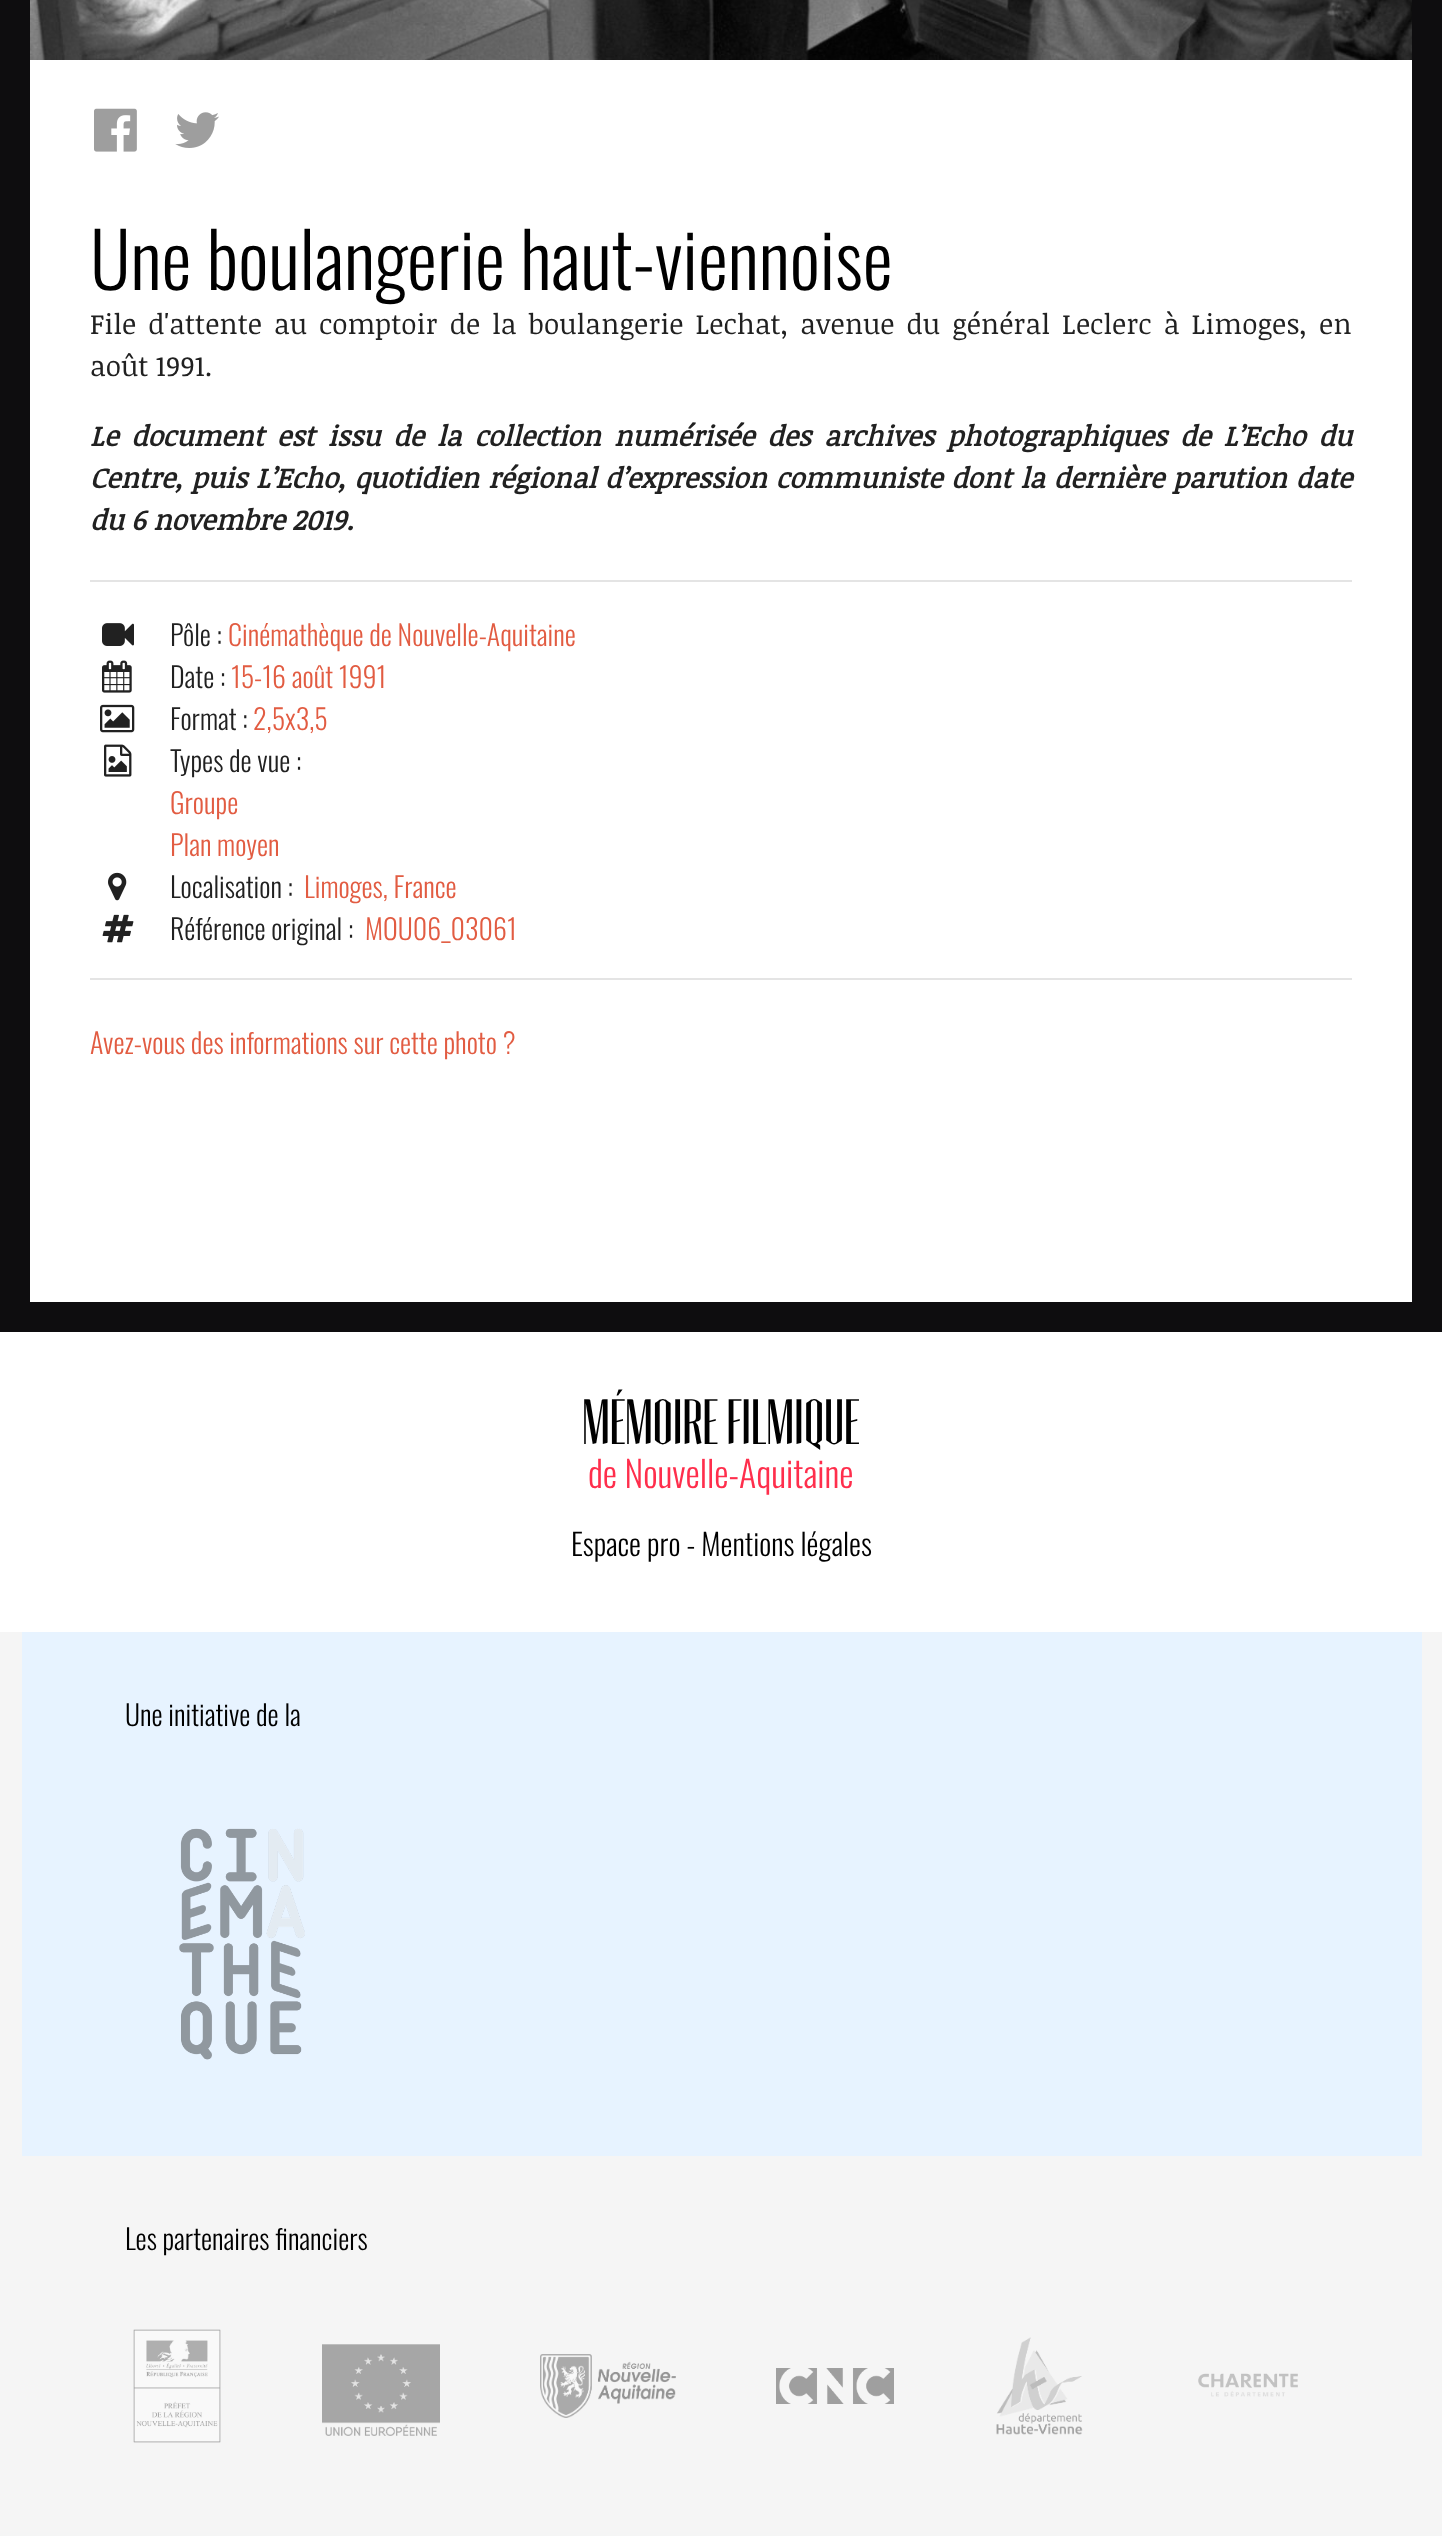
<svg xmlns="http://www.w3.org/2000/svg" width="1442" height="2536">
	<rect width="100%" height="100%" fill="#0E0D0F" />
	<rect x="30" y="60" width="1382" height="1242" fill="#FFFFFF" />
	<image x="30" y="0" width="1382" height="60" href="assets/img1.png" />
	<image x="94" y="108" width="43" height="44" href="assets/img2.png" />
	<image x="175" y="112" width="44" height="36" href="assets/img3.png" />
	<text x="90" y="290" font-family="Oswald" font-size="75.6" font-weight="300" fill="#000000">Une boulangerie haut-viennoise</text>
	<g font-family="Noticia Text" font-size="28" fill="#212121">
		<text x="90" y="334" word-spacing="4.5">File d'attente au comptoir de la boulangerie Lechat, avenue du général Leclerc à Limoges, en</text>
		<text x="90" y="376">août 1991.</text>
	</g>
	<g font-family="Noticia Text" font-size="28" font-weight="700" font-style="italic" fill="#212121">
		<text x="90" y="446" word-spacing="5.6">Le document est issu de la collection numérisée des archives photographiques de L’Echo du</text>
		<text x="90" y="488" word-spacing="1.5">Centre, puis L’Echo, quotidien régional d’expression communiste dont la dernière parution date</text>
		<text x="90" y="530">du 6 novembre 2019.</text>
	</g>
	<rect x="90" y="580" width="1262" height="2" fill="#E4E4E4" />
	<rect x="90" y="978" width="1262" height="2" fill="#E4E4E4" />
	<image x="102" y="623" width="32" height="23" href="assets/img4.png" />
	<text x="170" y="646" font-family="Oswald" font-size="28" font-weight="300" fill="#212121">Pôle :</text>
	<text x="228" y="646" font-family="Oswald" font-size="28" font-weight="300" fill="#E25C42">Cinémathèque de Nouvelle-Aquitaine</text>
	<image x="102" y="660" width="30" height="33" href="assets/img5.png" />
	<text x="170" y="688" font-family="Oswald" font-size="28" font-weight="300" fill="#212121">Date :</text>
	<text x="231" y="688" font-family="Oswald" font-size="28" font-weight="300" fill="#E25C42">15-16 août 1991</text>
	<image x="100" y="704" width="35" height="29" href="assets/img6.png" />
	<text x="170" y="730" font-family="Oswald" font-size="28" font-weight="300" fill="#212121">Format :</text>
	<text x="253" y="730" font-family="Oswald" font-size="28" font-weight="300" fill="#E25C42">2,5x3,5</text>
	<image x="104" y="744" width="28" height="33" href="assets/img7.png" />
	<text x="170" y="772" font-family="Oswald" font-size="28" font-weight="300" fill="#212121">Types de vue :</text>
	<g font-family="Oswald" font-size="28" font-weight="300" fill="#E25C42">
		<text x="170" y="814">Groupe</text>
		<text x="170" y="856">Plan moyen</text>
	</g>
	<image x="108" y="872" width="19" height="29" href="assets/img8.png" />
	<text x="170" y="898" font-family="Oswald" font-size="28" font-weight="300" fill="#212121">Localisation :</text>
	<text x="304" y="898" font-family="Oswald" font-size="28" font-weight="300" fill="#E25C42">Limoges, France</text>
	<image x="102" y="914" width="32" height="29" href="assets/img9.png" />
	<text x="170" y="940" font-family="Oswald" font-size="28" font-weight="300" fill="#212121">Référence original :</text>
	<g font-family="Oswald" font-size="28" font-weight="300" fill="#E25C42">
		<text x="365" y="940">MOU06_03061</text>
		<text x="90" y="1054">Avez-vous des informations sur cette photo ?</text>
	</g>
	<rect x="0" y="1332" width="1442" height="300" fill="#FFFFFF" />
	<text x="582" y="1444" font-family="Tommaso" font-size="64" fill="#000000">MÉMOIRE FILMIQUE</text>
	<text x="588" y="1488" font-family="Oswald" font-size="36" font-weight="300" fill="#FF2E4C">de Nouvelle-Aquitaine</text>
	<text x="571" y="1556" font-family="Oswald" font-size="30" font-weight="300" fill="#000000">Espace pro - Mentions légales</text>
	<rect x="0" y="1632" width="1442" height="904" fill="#F5F5F5" />
	<rect x="22" y="1632" width="1400" height="524" fill="#E7F3FF" />
	<text x="125" y="1726" font-family="Oswald" font-size="28" font-weight="300" fill="#000000">Une initiative de la</text>
	<image x="179" y="1828" width="126" height="232" href="assets/img10.png" />
	<text x="125" y="2250" font-family="Oswald" font-size="28" font-weight="300" fill="#000000">Les partenaires financiers</text>
	<image x="133" y="2329" width="88" height="114" href="assets/img11.png" />
	<image x="322" y="2344" width="118" height="92" href="assets/img12.png" />
	<image x="540" y="2354" width="136" height="64" href="assets/img13.png" />
	<image x="776" y="2368" width="118" height="36" href="assets/img14.png" />
	<image x="996" y="2337" width="87" height="98" href="assets/img15.png" />
	<image x="1198" y="2373" width="100" height="24" href="assets/img16.png" />
</svg>
